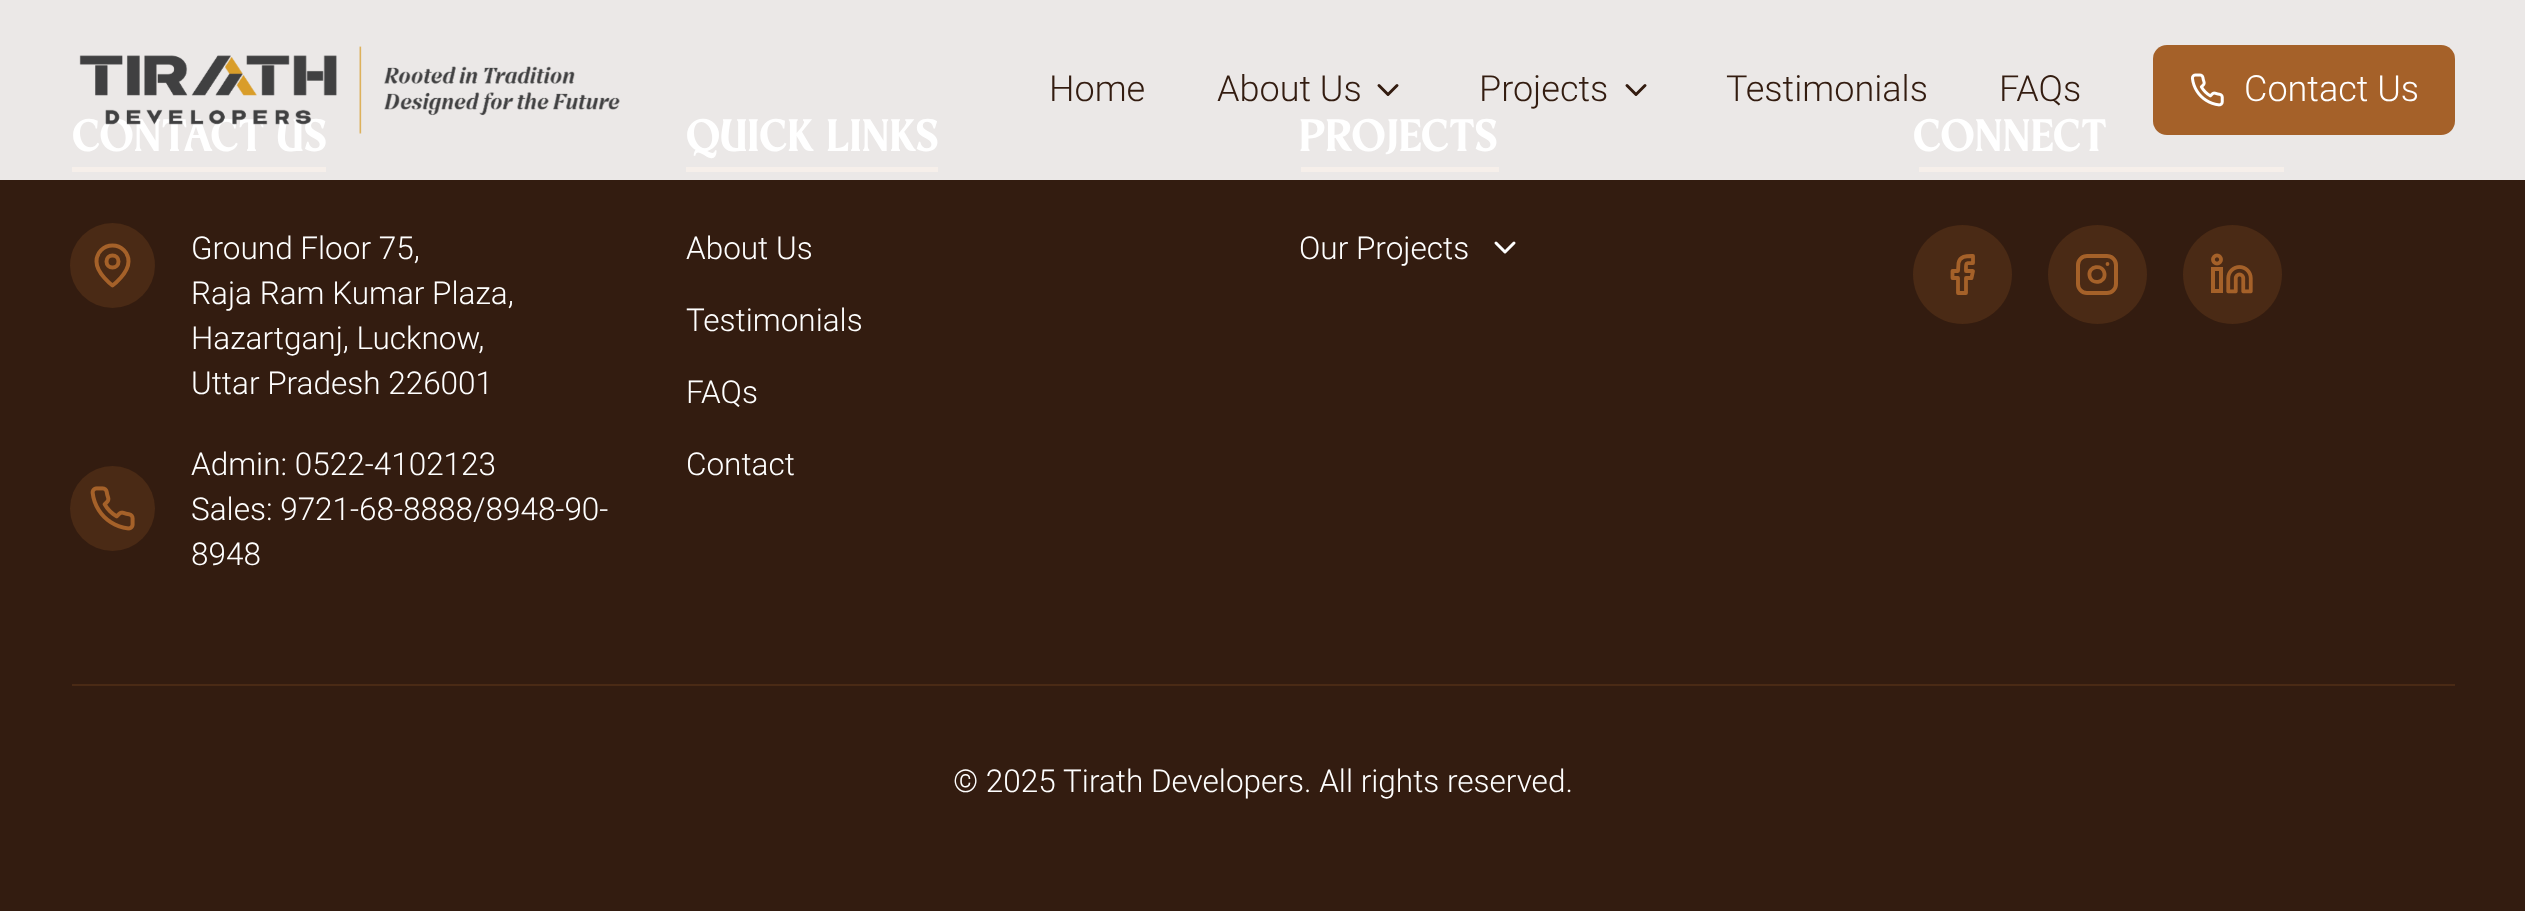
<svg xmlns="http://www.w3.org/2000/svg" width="2525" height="911">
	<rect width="100%" height="100%" fill="#331C10" />
	<rect x="0" y="0" width="2525" height="180" fill="#EBE8E7" />
	<text x="72" y="151" font-family="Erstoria" font-size="45" font-weight="700" letter-spacing="1.1" fill="#FFFFFF">CONTACT US</text>
	<image x="79" y="46" width="541" height="88" href="assets/img1.png" />
	<g font-family="Roboto" font-size="36" font-weight="300" fill="#331C10">
		<text x="1049" y="101">Home</text>
		<text x="1217" y="101">About Us</text>
	</g>
	<path d="M1379 85.5L1388 94.5L1397 85.5" fill="none" stroke="#331C10" stroke-width="3" stroke-linecap="round" stroke-linejoin="round" />
	<text x="1479" y="101" font-family="Roboto" font-size="36" font-weight="300" fill="#331C10">Projects</text>
	<path d="M1627 85.5L1636 94.5L1645 85.5" fill="none" stroke="#331C10" stroke-width="3" stroke-linecap="round" stroke-linejoin="round" />
	<g font-family="Roboto" font-size="36" font-weight="300" fill="#331C10">
		<text x="1726" y="101">Testimonials</text>
		<text x="1999" y="101">FAQs</text>
	</g>
	<rect x="2153" y="45" width="302" height="90" rx="14" fill="#A56129" />
	<image x="2190" y="73" width="34" height="34" href="assets/img2.png" />
	<text x="2244" y="101" font-family="Roboto" font-size="36" font-weight="300" fill="#FFFFFF">Contact Us</text>
	<rect x="72" y="167" width="254" height="5" fill="#F6EFEA" />
	<circle cx="112.5" cy="265.5" r="42.5" fill="#4A2A15" />
	<path d="M128.5 261.5C128.5 273.5 112.5 285.5 112.5 285.5C112.5 285.5 96.5 273.5 96.5 261.5C96.5 252.5 103.5 245.5 112.5 245.5C121.5 245.5 128.5 252.5 128.5 261.5Z" fill="none" stroke="#A56129" stroke-width="4" stroke-linecap="round" stroke-linejoin="round" />
	<circle cx="112.5" cy="261.5" r="6" fill="none" stroke="#A56129" stroke-width="4" />
	<g font-family="Roboto" font-size="31.5" font-weight="300" fill="#FFFFFF">
		<text x="191" y="259">Ground Floor 75,</text>
		<text x="191" y="304">Raja Ram Kumar Plaza,</text>
		<text x="191" y="349">Hazartganj, Lucknow,</text>
		<text x="191" y="394">Uttar Pradesh 226001</text>
	</g>
	<circle cx="112.5" cy="508.5" r="42.5" fill="#4A2A15" />
	<image x="90" y="486" width="45" height="45" href="assets/img3.png" />
	<g font-family="Roboto" font-size="31.5" font-weight="300" fill="#FFFFFF">
		<text x="191" y="475">Admin: 0522-4102123</text>
		<text x="191" y="520">Sales: 9721-68-8888/8948-90-</text>
		<text x="191" y="565">8948</text>
	</g>
	<text x="686" y="151" font-family="Erstoria" font-size="45" font-weight="700" letter-spacing="1.1" fill="#FFFFFF">QUICK LINKS</text>
	<rect x="686" y="167" width="252" height="5" fill="#F6EFEA" />
	<g font-family="Roboto" font-size="31.5" font-weight="300" fill="#FFFFFF">
		<text x="686" y="259">About Us</text>
		<text x="686" y="331">Testimonials</text>
		<text x="686" y="403">FAQs</text>
		<text x="686" y="475">Contact</text>
	</g>
	<text x="1299" y="151" font-family="Erstoria" font-size="45" font-weight="700" letter-spacing="1.1" fill="#FFFFFF">PROJECTS</text>
	<rect x="1301" y="167" width="198" height="5" fill="#F6EFEA" />
	<text x="1299" y="259" font-family="Roboto" font-size="31.5" font-weight="300" fill="#FFFFFF">Our Projects</text>
	<path d="M1496 243L1505 252L1514 243" fill="none" stroke="#FFFFFF" stroke-width="3" stroke-linecap="round" stroke-linejoin="round" />
	<text x="1913" y="151" font-family="Erstoria" font-size="45" font-weight="700" letter-spacing="1.1" fill="#FFFFFF">CONNECT</text>
	<rect x="1919" y="167" width="365" height="5" fill="#F6EFEA" />
	<circle cx="1962.5" cy="274.5" r="49.5" fill="#4A2A15" />
	<path d="M1973 256C1967 256 1960 255.5 1958.5 263L1958 271H1952.5V278H1958V293H1966V278H1971.5L1973 271H1966C1966 262.5 1965 263 1973 263Z" fill="none" stroke="#A56129" stroke-width="3.8" stroke-linecap="round" stroke-linejoin="round" />
	<circle cx="2097.5" cy="274.5" r="49.5" fill="#4A2A15" />
	<rect x="2078" y="256" width="38" height="37" rx="9" fill="none" stroke="#A56129" stroke-width="4" />
	<path d="M2104.5 273.5C2106 283 2091 285.5 2089.5 275.5C2088 266 2103 263.5 2104.5 273.5ZM2107.5 264H2107.5" fill="none" stroke="#A56129" stroke-width="3.8" stroke-linecap="round" stroke-linejoin="round" />
	<circle cx="2232.5" cy="274.5" r="49.5" fill="#4A2A15" />
	<image x="2211" y="253" width="42" height="41" href="assets/img4.png" />
	<rect x="72" y="684" width="2383" height="2" fill="#4A2A15" />
	<g font-family="Roboto" font-size="31.5" font-weight="300" fill="#FFFFFF">
		<text x="953" y="792">© 2025</text>
		<text x="1063" y="792">Tirath Developers. All rights reserved.</text>
	</g>
</svg>
